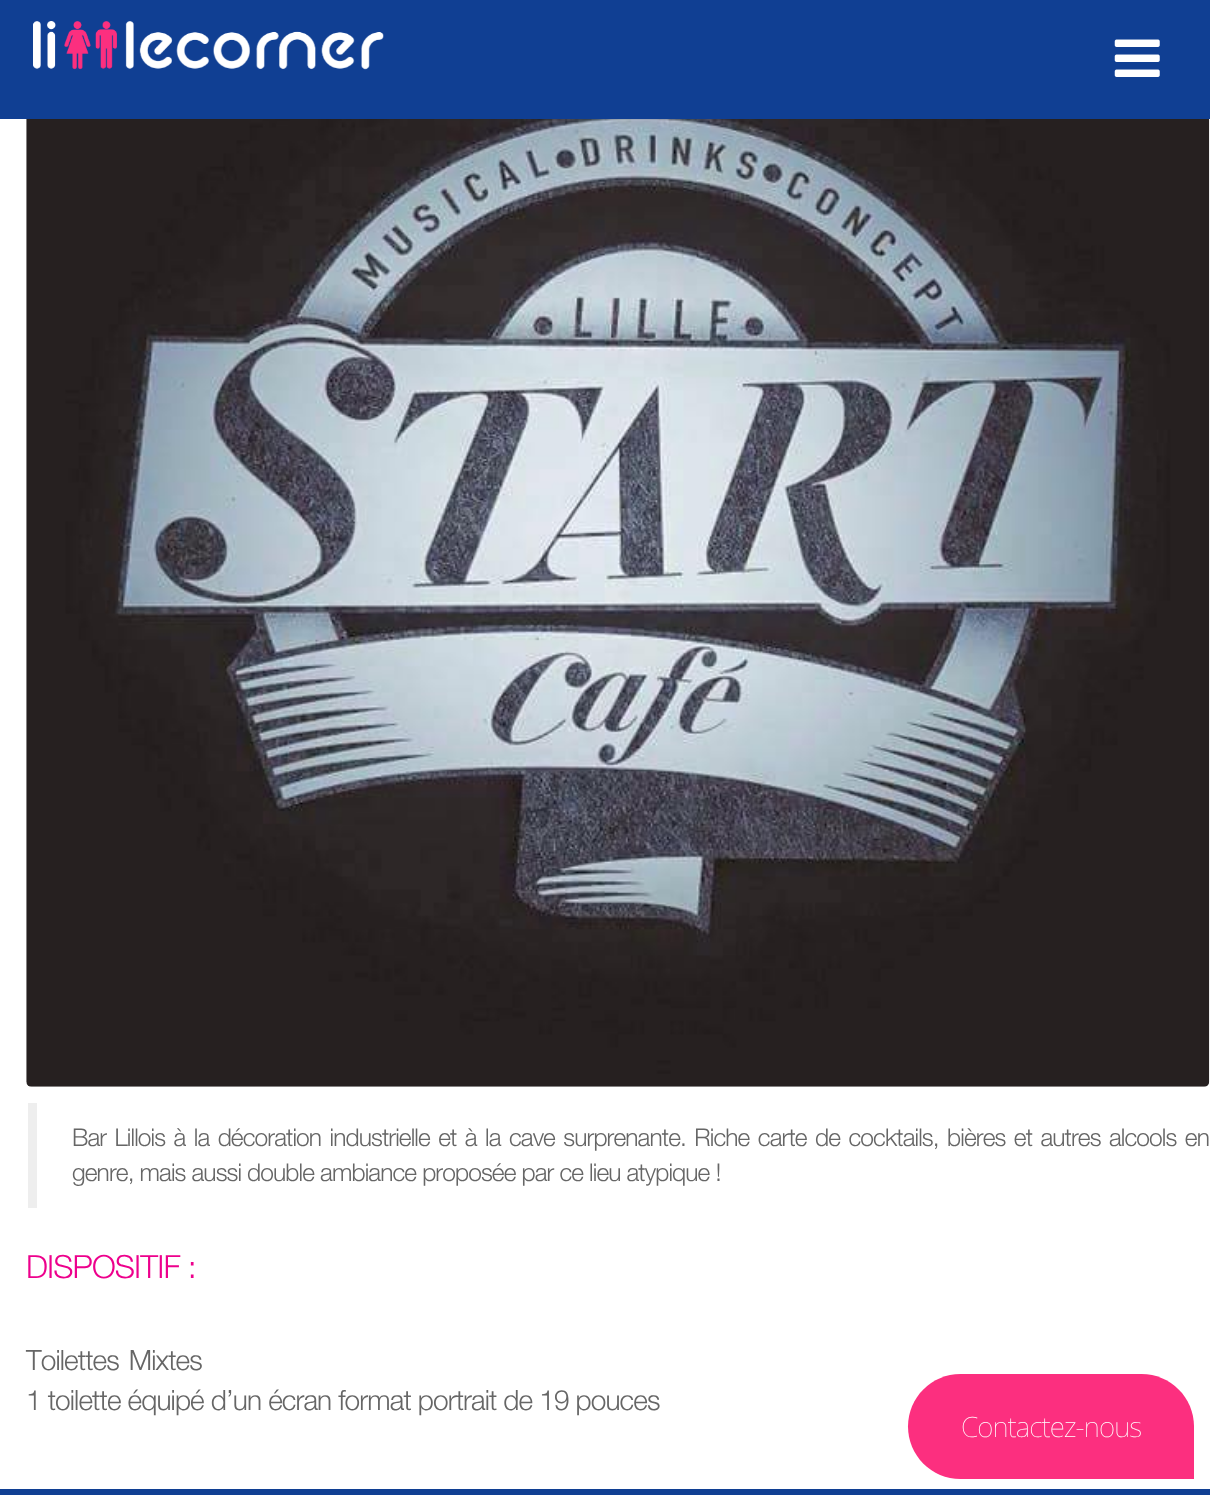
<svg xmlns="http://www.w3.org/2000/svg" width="1210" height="1495">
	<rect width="100%" height="100%" fill="#FFFFFF" />
	<rect x="0" y="0" width="1210" height="119" fill="#103F93" />
	<image x="33" y="21" width="351" height="49" href="assets/img1.png" />
	<image x="1114" y="39" width="46" height="38" href="assets/img2.png" />
	<image x="26" y="119" width="1184" height="968" href="assets/img3.png" />
	<rect x="28" y="1103" width="9" height="105" fill="#EEEEEE" />
	<g font-family="Helvetica Neue" font-size="24.5" font-weight="300" letter-spacing="-0.86" fill="#666666">
		<text x="72" y="1146" word-spacing="2.4">Bar Lillois à la décoration industrielle et à la cave surprenante. Riche carte de cocktails, bières et autres alcools en</text>
		<text x="72" y="1181">genre, mais aussi double ambiance proposée par ce lieu atypique !</text>
	</g>
	<text x="26" y="1278" font-family="Helvetica Neue" font-size="32" font-weight="300" letter-spacing="-0.86" fill="#ED008C">DISPOSITIF :</text>
	<g font-family="Helvetica Neue" font-size="28" font-weight="300" letter-spacing="-0.86" fill="#666666">
		<text x="26" y="1370" word-spacing="3">Toilettes Mixtes</text>
		<text x="26" y="1410">1 toilette équipé d’un écran format portrait de 19 pouces</text>
	</g>
	<path d="M960.5 1374H1141.5C1170.5 1374 1194 1397.5 1194 1426.5V1479H960.5C931.5 1479 908 1455.5 908 1426.5C908 1397.5 931.5 1374 960.5 1374Z" fill="#FC2F7F" />
	<text x="961" y="1437" font-family="Noto Sans" font-size="28" font-weight="100" letter-spacing="-0.86" fill="#FFFFFF">Contactez-nous</text>
	<rect x="0" y="1489" width="1210" height="6" fill="#103F93" />
</svg>
